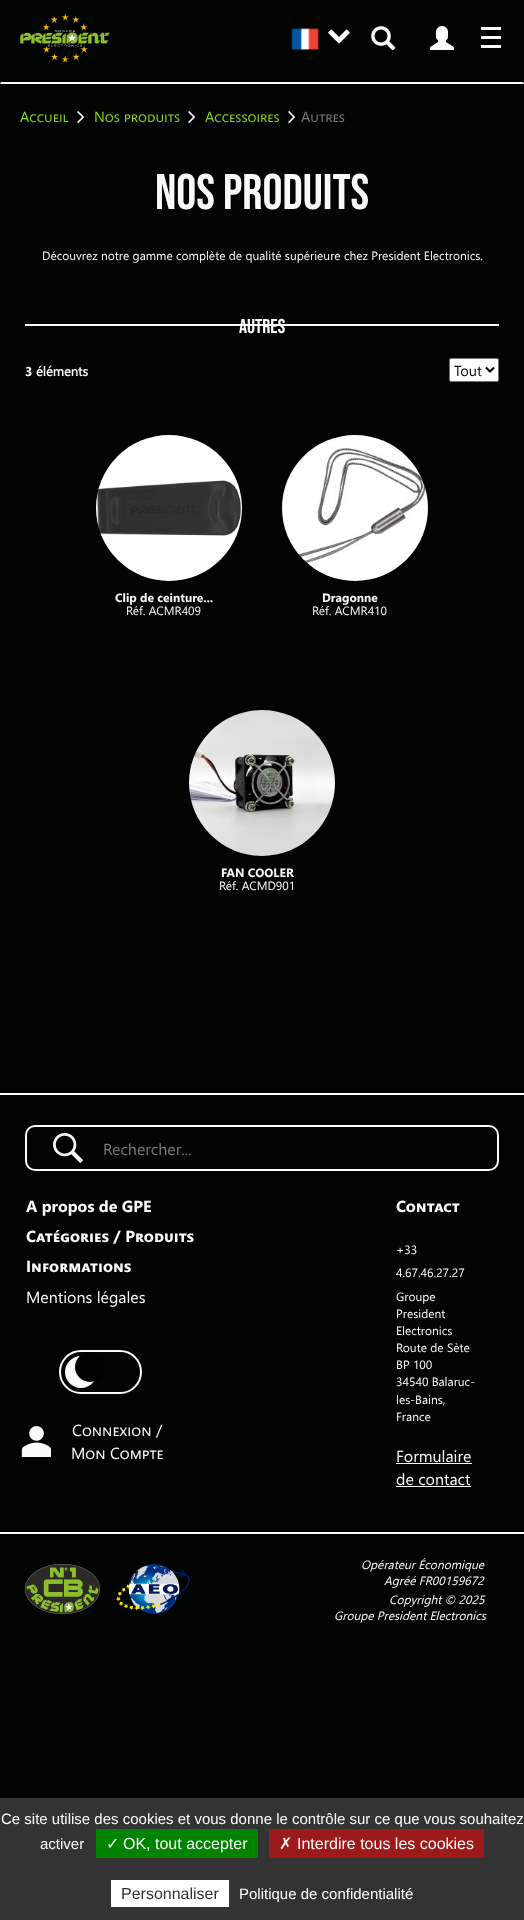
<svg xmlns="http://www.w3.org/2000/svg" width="524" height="1920">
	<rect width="100%" height="100%" fill="#020402" />
	<image x="20" y="13" width="90" height="50" href="assets/img1.png" />
	<path d="M524 84H0L1 82H523Z" fill="#FAFAFA" />
	<image x="291" y="28" width="28" height="22" href="assets/img2.png" />
	<image x="328" y="29" width="22" height="15" href="assets/img3.png" />
	<image x="371" y="26" width="25" height="25" href="assets/img4.png" />
	<image x="430" y="26" width="24" height="24" href="assets/img5.png" />
	<rect x="481" y="27" width="20" height="3" fill="#FAFAFA" />
	<rect x="481" y="36" width="20" height="3" fill="#FAFAFA" />
	<rect x="481" y="45" width="20" height="3" fill="#FAFAFA" />
	<text x="20" y="122" font-family="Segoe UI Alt" font-size="14.5" fill="#88D70C">Accueil</text>
	<image x="77" y="111" width="8" height="12" href="assets/img6.png" />
	<text x="94" y="122" font-family="Segoe UI Alt" font-size="14.5" fill="#88D70C">Nos produits</text>
	<image x="188" y="111" width="8" height="12" href="assets/img6.png" />
	<text x="205" y="122" font-family="Segoe UI Alt" font-size="14.5" fill="#88D70C">Accessoires</text>
	<image x="288" y="111" width="8" height="12" href="assets/img6.png" />
	<text x="301" y="122" font-family="Segoe UI Alt" font-size="14.5" fill="#7A7A7A">Autres</text>
	<text x="155" y="209" font-family="Bebas Neue" font-size="50" fill="#FAFAFA">Nos produits</text>
	<text x="42" y="260" font-family="Segoe UI" font-size="12" fill="#FAFAFA">Découvrez notre gamme complète de qualité supérieure chez President Electronics.</text>
	<text x="239" y="333" font-family="Bebas Neue" font-size="20" fill="#FAFAFA">Autres</text>
	<rect x="25" y="324" width="474" height="2" fill="#FAFAFA" />
	<text x="25" y="376" font-family="Segoe UI" font-size="13" font-weight="700" fill="#FAFAFA">3</text>
	<text x="36" y="376" font-family="'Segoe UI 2'" font-size="13" font-weight="700" fill="#FAFAFA">éléments</text>
	<rect x="449.5" y="358.5" width="49" height="23" rx="1.5" fill="#FFFFFF" stroke="#767676" />
	<path d="M486 367.5L490 371.5L494 367.5" fill="none" stroke="#020402" stroke-width="2" />
	<text x="454" y="376" font-family="Segoe UI" font-size="14.5" fill="#020402">Tout</text>
	<image x="96" y="435" width="146" height="146" href="assets/img7.png" />
	<text x="115" y="602" font-family="Segoe UI" font-size="12" font-weight="700" fill="#FAFAFA">Clip de ceinture...</text>
	<text x="126" y="615" font-family="Segoe UI" font-size="12" fill="#FAFAFA">Réf. ACMR409</text>
	<image x="282" y="435" width="146" height="146" href="assets/img8.png" />
	<text x="322" y="602" font-family="Segoe UI" font-size="12" font-weight="700" fill="#FAFAFA">Dragonne</text>
	<text x="312" y="615" font-family="Segoe UI" font-size="12" fill="#FAFAFA">Réf. ACMR410</text>
	<image x="189" y="710" width="146" height="146" href="assets/img9.png" />
	<text x="221" y="877" font-family="Segoe UI" font-size="12" font-weight="700" fill="#FAFAFA">FAN COOLER</text>
	<text x="219" y="890" font-family="Segoe UI" font-size="12" fill="#FAFAFA">Réf. ACMD901</text>
	<rect x="0" y="1093" width="524" height="2" fill="#FAFAFA" />
	<image x="53" y="1133" width="30" height="30" href="assets/img10.png" />
	<rect x="26" y="1126" width="472" height="44" rx="9" fill="none" stroke="#FAFAFA" stroke-width="2" />
	<text x="103" y="1155" font-family="Segoe UI" font-size="16" fill="#7A7A7A">Rechercher...</text>
	<text x="26" y="1212" font-family="Segoe UI" font-size="16" font-weight="700" fill="#FAFAFA">A propos de GPE</text>
	<g font-family="Segoe UI Alt" font-size="16" font-weight="700" fill="#FAFAFA">
		<text x="26" y="1242">Catégories / Produits</text>
		<text x="26" y="1272">Informations</text>
	</g>
	<text x="26" y="1303" font-family="Segoe UI" font-size="16" fill="#FAFAFA">Mentions légales</text>
	<rect x="60" y="1351" width="81" height="42" rx="21" fill="none" stroke="#FAFAFA" stroke-width="2" />
	<circle cx="81" cy="1372" r="16" fill="#FAFAFA" />
	<circle cx="90" cy="1367" r="15" fill="#000000" />
	<image x="21" y="1426" width="30" height="31" href="assets/img11.png" />
	<g font-family="Segoe UI Alt" font-size="16" fill="#FAFAFA">
		<text x="72" y="1436">Connexion /</text>
		<text x="71" y="1459">Mon Compte</text>
	</g>
	<text x="396" y="1212" font-family="Segoe UI Alt" font-size="16" font-weight="700" fill="#FAFAFA">Contact</text>
	<g font-family="Segoe UI" font-size="12" fill="#FAFAFA">
		<text x="396" y="1254">+33</text>
		<text x="396" y="1277">4.67.46.27.27</text>
		<text x="396" y="1301">Groupe</text>
		<text x="396" y="1318">President</text>
		<text x="396" y="1335">Electronics</text>
		<text x="396" y="1352">Route de Sète</text>
		<text x="396" y="1369">BP 100</text>
		<text x="396" y="1386">34540 Balaruc-</text>
		<text x="396" y="1404">les-Bains,</text>
		<text x="396" y="1421">France</text>
	</g>
	<text x="396" y="1462" font-family="Segoe UI" font-size="16" fill="#FAFAFA">Formulaire</text>
	<rect x="396" y="1463" width="76" height="1" fill="#FAFAFA" />
	<text x="396" y="1485" font-family="Segoe UI" font-size="16" fill="#FAFAFA">de contact</text>
	<rect x="396" y="1486" width="75" height="1" fill="#FAFAFA" />
	<rect x="0" y="1532" width="524" height="2" fill="#FAFAFA" />
	<image x="25" y="1564" width="75" height="50" href="assets/img12.png" />
	<image x="116" y="1564" width="74" height="50" href="assets/img13.png" />
	<g font-family="Segoe UI" font-size="12" font-style="italic" fill="#FAFAFA">
		<text x="361" y="1569">Opérateur Économique</text>
		<text x="384" y="1585">Agréé FR00159672</text>
		<text x="389" y="1604">Copyright © 2025</text>
		<text x="334" y="1620">Groupe President Electronics</text>
	</g>
	<rect x="0" y="1798" width="524" height="122" fill="#333333" />
	<g font-family="Liberation Sans" font-size="15" fill="#FAFAFA">
		<text x="1" y="1824">Ce site utilise des cookies et vous donne le contrôle sur ce que vous souhaitez</text>
		<text x="40" y="1849">activer</text>
	</g>
	<rect x="96" y="1829" width="162" height="29" fill="#008300" />
	<text x="106" y="1849" font-family="DejaVu Sans" font-size="16" fill="#FAFAFA">✓</text>
	<text x="123" y="1849" font-family="Liberation Sans" font-size="16" fill="#FAFAFA">OK, tout accepter</text>
	<rect x="269" y="1829" width="215" height="29" fill="#9C1A1A" />
	<text x="279" y="1849" font-family="DejaVu Sans" font-size="16" fill="#FAFAFA">✗</text>
	<text x="297" y="1849" font-family="Liberation Sans" font-size="16" fill="#FAFAFA">Interdire tous les cookies</text>
	<rect x="111" y="1880" width="118" height="27" fill="#FFFFFF" />
	<text x="121" y="1899" font-family="Liberation Sans" font-size="16" fill="#333333">Personnaliser</text>
	<text x="239" y="1899" font-family="Liberation Sans" font-size="15" fill="#FAFAFA">Politique de confidentialité</text>
</svg>
